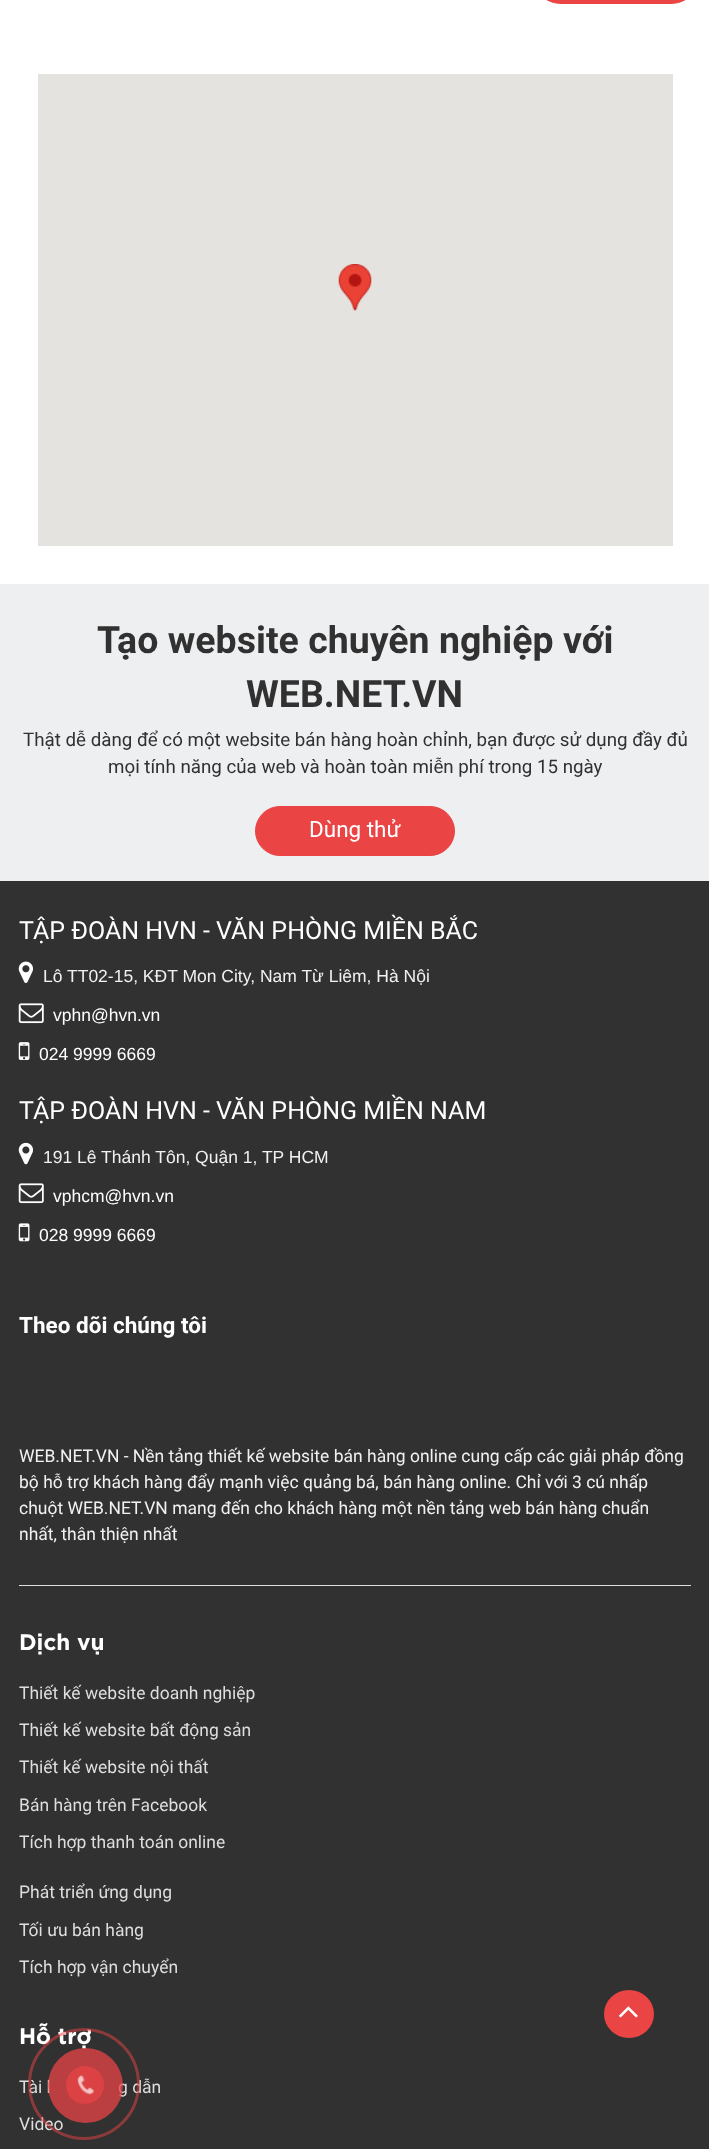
<svg xmlns="http://www.w3.org/2000/svg" width="709" height="2149">
	<rect width="100%" height="100%" fill="#FFFFFF" />
	<rect x="541.5" y="-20.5" width="149" height="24" rx="19.5" fill="#EA4445" stroke="#EA4445" />
	<rect x="38" y="74" width="635" height="472" fill="#E5E3DF" />
	<image x="338" y="264" width="34" height="47" href="assets/img1.png" />
	<rect x="0" y="584" width="709" height="297" fill="#EEEFF1" />
	<g font-family="Roboto" font-size="37.5" font-weight="700" fill="#313131">
		<text x="97" y="653">Tạo website chuyên nghiệp với</text>
		<text x="246" y="707">WEB.NET.VN</text>
	</g>
	<g font-family="Roboto" font-size="18.75" fill="#313131">
		<text x="23" y="746">Thật dễ dàng để có một website bán hàng hoàn chỉnh, bạn được sử dụng đầy đủ</text>
		<text x="108" y="773">mọi tính năng của web và hoàn toàn miễn phí trong 15 ngày</text>
	</g>
	<rect x="255.5" y="806.5" width="199" height="49" rx="24.5" fill="#EA4445" stroke="#EA4445" />
	<text x="309" y="837" font-family="Roboto" font-size="22.5" fill="#FFFFFF">Dùng thử</text>
	<rect x="0" y="881" width="709" height="1268" fill="#313131" />
	<text x="19" y="939" font-family="Roboto" font-size="25" fill="#FFFFFF">TẬP ĐOÀN HVN - VĂN PHÒNG MIỀN BẮC</text>
	<image x="18" y="961" width="15" height="22" href="assets/img2.png" />
	<text x="43" y="982" font-family="Liberation Sans" font-size="17.5" fill="#F1F1F1">Lô TT02-15, KĐT Mon City, Nam Từ Liêm, Hà Nội</text>
	<image x="18" y="1003" width="26" height="21" href="assets/img3.png" />
	<text x="53" y="1021" font-family="Liberation Sans" font-size="17.5" fill="#FFFFFF">vphn@hvn.vn</text>
	<image x="18" y="1042" width="12" height="18" href="assets/img4.png" />
	<text x="39" y="1060" font-family="Liberation Sans" font-size="17.5" fill="#FFFFFF">024 9999 6669</text>
	<text x="19" y="1119" font-family="Roboto" font-size="25" fill="#FFFFFF">TẬP ĐOÀN HVN - VĂN PHÒNG MIỀN NAM</text>
	<image x="18" y="1142" width="15" height="23" href="assets/img5.png" />
	<text x="43" y="1163" font-family="Liberation Sans" font-size="17.5" fill="#F1F1F1">191 Lê Thánh Tôn, Quận 1, TP HCM</text>
	<image x="18" y="1183" width="26" height="21" href="assets/img3.png" />
	<text x="53" y="1202" font-family="Liberation Sans" font-size="17.5" fill="#FFFFFF">vphcm@hvn.vn</text>
	<image x="18" y="1223" width="12" height="19" href="assets/img6.png" />
	<text x="39" y="1241" font-family="Liberation Sans" font-size="17.5" fill="#FFFFFF">028 9999 6669</text>
	<text x="19" y="1333" font-family="Roboto" font-size="22.5" font-weight="700" fill="#FFFFFF">Theo dõi chúng tôi</text>
	<g font-family="Roboto" font-size="17.5" fill="#F1F1F1">
		<text x="19" y="1462">WEB.NET.VN - Nền tảng thiết kế website bán hàng online cung cấp các giải pháp đồng</text>
		<text x="19" y="1488">bộ hỗ trợ khách hàng đẩy mạnh việc quảng bá, bán hàng online. Chỉ với 3 cú nhấp</text>
		<text x="19" y="1514">chuột WEB.NET.VN mang đến cho khách hàng một nền tảng web bán hàng chuẩn</text>
		<text x="19" y="1540">nhất, thân thiện nhất</text>
	</g>
	<rect x="19" y="1585" width="672" height="1" fill="#DEDEDE" />
	<text x="19" y="1650" font-family="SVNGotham" font-size="22.5" font-weight="700" fill="#FFFFFF">Dịch vụ</text>
	<g font-family="Roboto" font-size="17.5" fill="#DEDEDE">
		<text x="19" y="1699">Thiết kế website doanh nghiệp</text>
		<text x="19" y="1736">Thiết kế website bất động sản</text>
		<text x="19" y="1773">Thiết kế website nội thất</text>
		<text x="19" y="1811">Bán hàng trên Facebook</text>
		<text x="19" y="1848">Tích hợp thanh toán online</text>
		<text x="19" y="1898">Phát triển ứng dụng</text>
		<text x="19" y="1936">Tối ưu bán hàng</text>
		<text x="19" y="1973">Tích hợp vận chuyển</text>
	</g>
	<text x="19" y="2044" font-family="SVNGotham" font-size="22.5" font-weight="700" fill="#FFFFFF">Hỗ trợ</text>
	<g font-family="Roboto" font-size="17.5" fill="#DEDEDE">
		<text x="19" y="2093">Tài l</text>
		<text x="118" y="2093">g dẫn</text>
		<text x="19" y="2130">Video</text>
	</g>
	<ellipse cx="629" cy="2014" rx="25" ry="24" fill="#EA4445" />
	<image x="619" y="2006" width="19" height="12" href="assets/img7.png" />
	<circle cx="84" cy="2084" r="54.5" fill="none" stroke="#EA4445" stroke-opacity="0.5" stroke-width="3" />
	<circle cx="85.5" cy="2085.5" r="37.5" fill="#EA4445" fill-opacity="0.75" />
	<circle cx="85" cy="2085" r="19" fill="#EA4445" fill-opacity="0.7" />
	<image x="77" y="2075" width="18" height="20" href="assets/img8.png" />
</svg>
